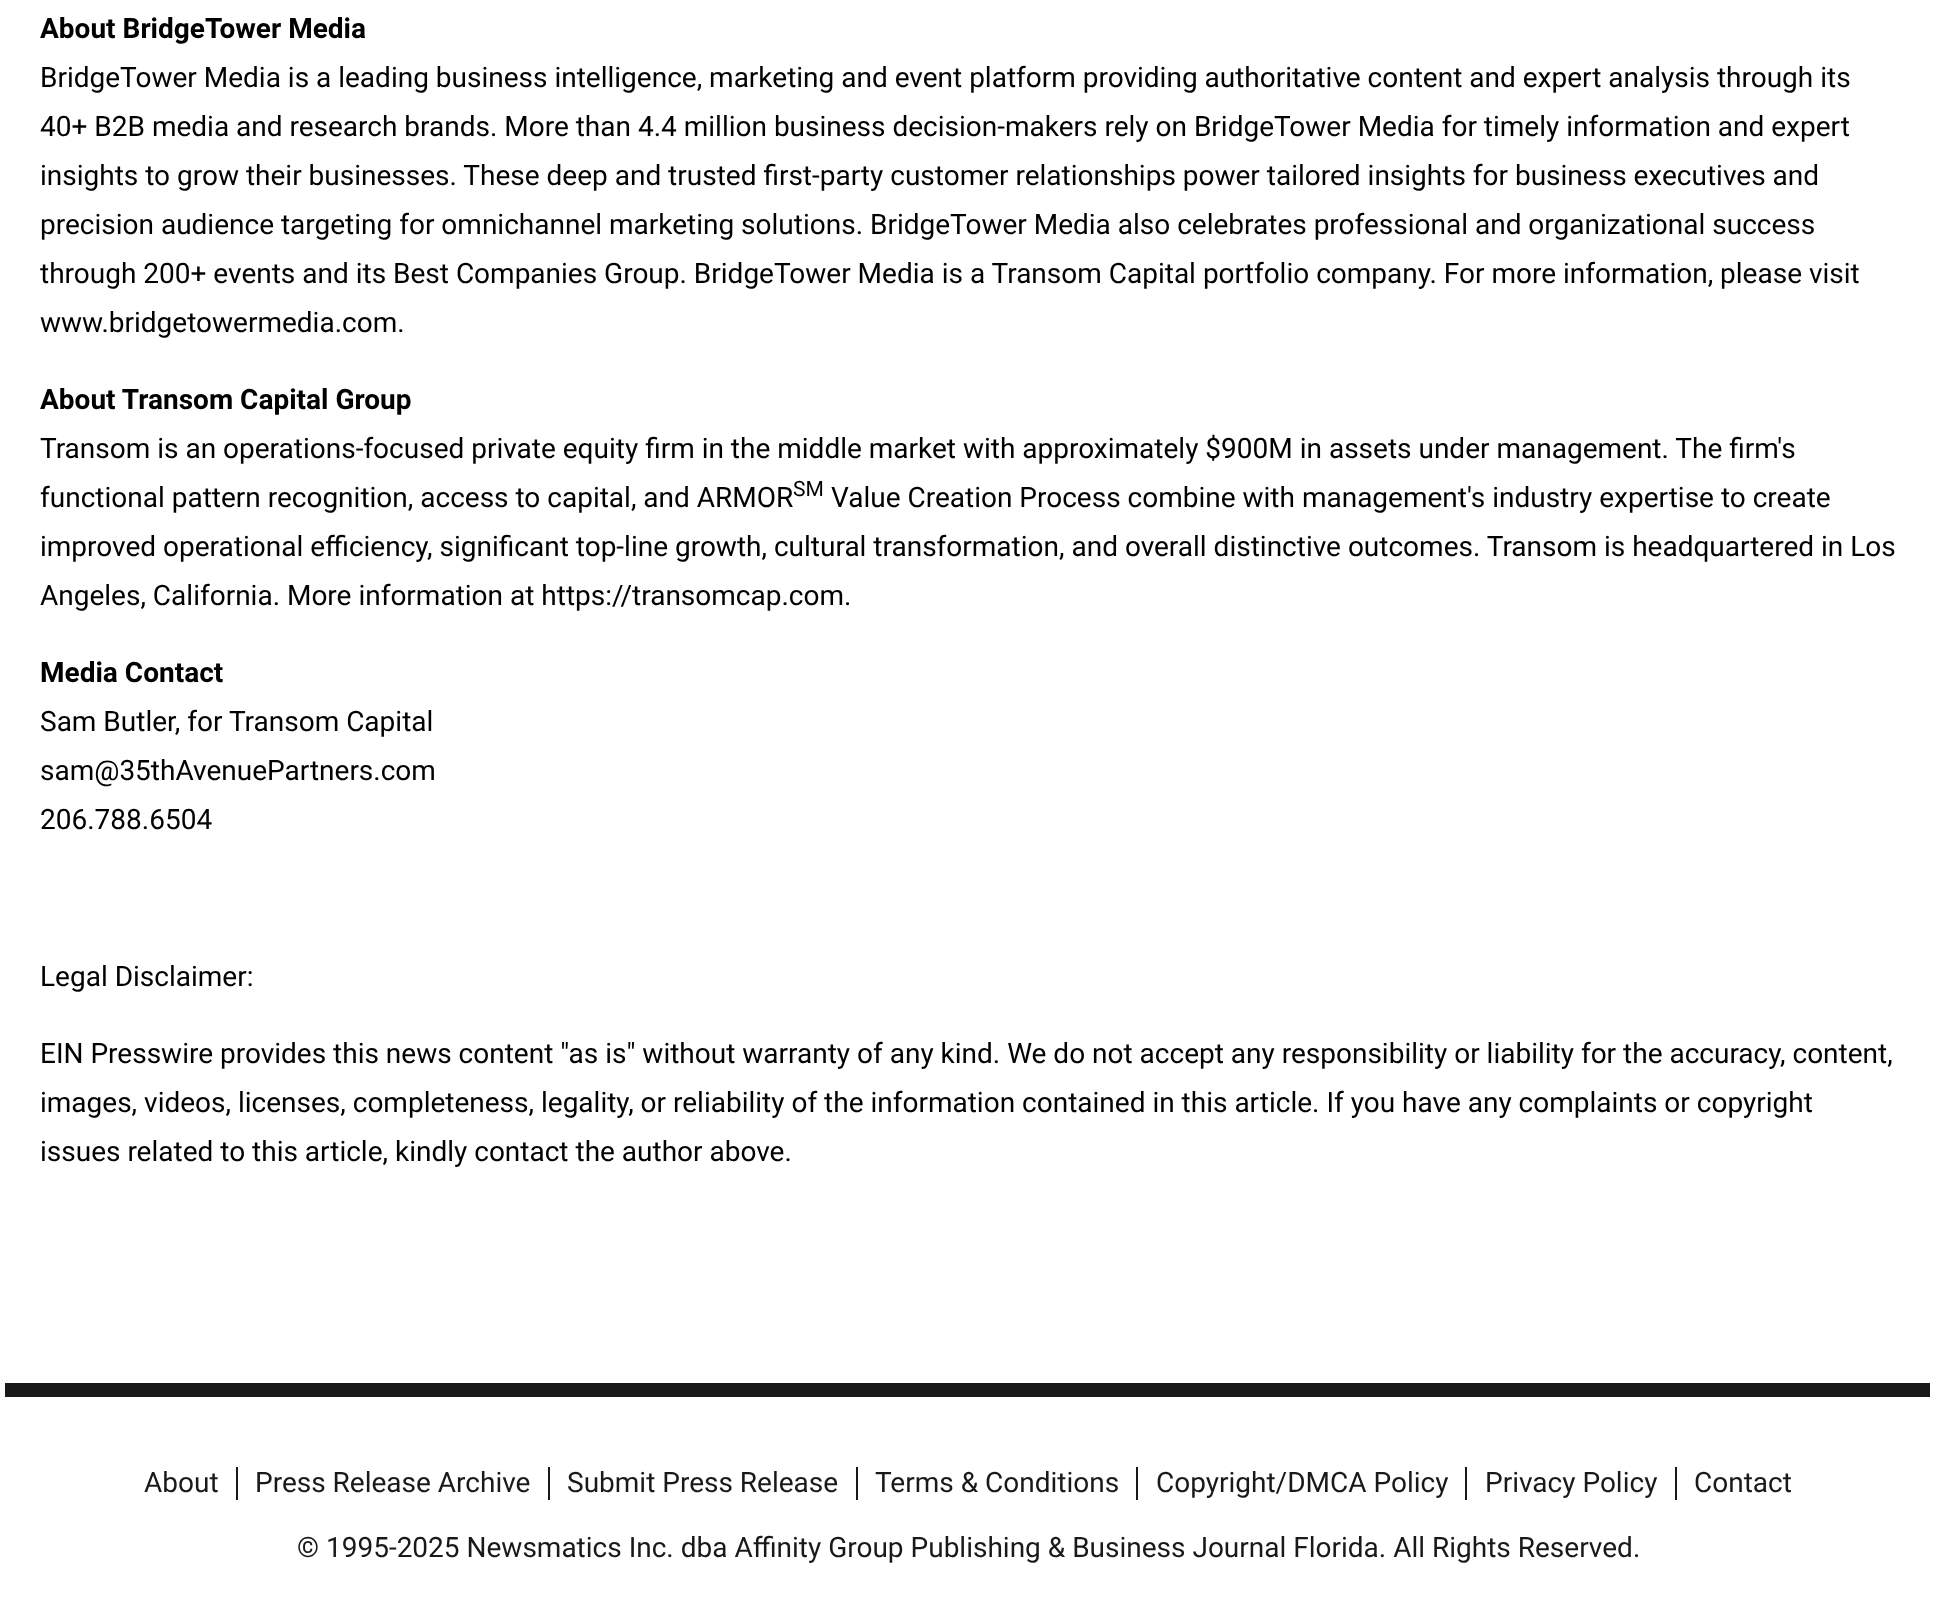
<svg xmlns="http://www.w3.org/2000/svg" width="1934" height="1603">
	<rect width="100%" height="100%" fill="#FFFFFF" />
	<text x="40" y="38" font-family="Roboto" font-size="28" font-weight="700" fill="#000000">About BridgeTower Media</text>
	<g font-family="Roboto" font-size="28" fill="#000000">
		<text x="40" y="87">BridgeTower Media is a leading business intelligence, marketing and event platform providing authoritative content and expert analysis through its</text>
		<text x="40" y="136">40+ B2B media and research brands. More than 4.4 million business decision-makers rely on BridgeTower Media for timely information and expert</text>
		<text x="40" y="185">insights to grow their businesses. These deep and trusted first-party customer relationships power tailored insights for business executives and</text>
		<text x="40" y="234">precision audience targeting for omnichannel marketing solutions. BridgeTower Media also celebrates professional and organizational success</text>
		<text x="40" y="283">through 200+ events and its Best Companies Group. BridgeTower Media is a Transom Capital portfolio company. For more information, please visit</text>
		<text x="40" y="332">www.bridgetowermedia.com.</text>
	</g>
	<text x="40" y="409" font-family="Roboto" font-size="28" font-weight="700" fill="#000000">About Transom Capital Group</text>
	<g font-family="Roboto" font-size="28" fill="#000000">
		<text x="40" y="458">Transom is an operations-focused private equity firm in the middle market with approximately $900M in assets under management. The firm's</text>
		<text x="40" y="507">functional pattern recognition, access to capital, and ARMOR</text>
	</g>
	<text x="793" y="496" font-family="Roboto" font-size="21" fill="#000000">SM</text>
	<g font-family="Roboto" font-size="28" fill="#000000">
		<text x="831" y="507">Value Creation Process combine with management's industry expertise to create</text>
		<text x="40" y="556">improved operational efficiency, significant top-line growth, cultural transformation, and overall distinctive outcomes. Transom is headquartered in Los</text>
		<text x="40" y="605">Angeles, California. More information at https://transomcap.com.</text>
	</g>
	<text x="40" y="682" font-family="Roboto" font-size="28" font-weight="700" fill="#000000">Media Contact</text>
	<g font-family="Roboto" font-size="28" fill="#000000">
		<text x="40" y="731">Sam Butler, for Transom Capital</text>
		<text x="40" y="780">sam@35thAvenuePartners.com</text>
		<text x="40" y="829">206.788.6504</text>
		<text x="40" y="986">Legal Disclaimer:</text>
		<text x="40" y="1063">EIN Presswire provides this news content "as is" without warranty of any kind. We do not accept any responsibility or liability for the accuracy, content,</text>
		<text x="40" y="1112">images, videos, licenses, completeness, legality, or reliability of the information contained in this article. If you have any complaints or copyright</text>
		<text x="40" y="1161">issues related to this article, kindly contact the author above.</text>
	</g>
	<rect x="5" y="1383" width="1925" height="14" fill="#191919" />
	<rect x="236" y="1467" width="2" height="33" fill="#191919" />
	<text x="144" y="1492" font-family="Roboto" font-size="28" fill="#191919">About</text>
	<rect x="548" y="1467" width="2" height="33" fill="#191919" />
	<text x="255" y="1492" font-family="Roboto" font-size="28" fill="#191919">Press Release Archive</text>
	<rect x="856" y="1467" width="2" height="33" fill="#191919" />
	<text x="567" y="1492" font-family="Roboto" font-size="28" fill="#191919">Submit Press Release</text>
	<rect x="1136" y="1467" width="2" height="33" fill="#191919" />
	<text x="875" y="1492" font-family="Roboto" font-size="28" fill="#191919">Terms &amp; Conditions</text>
	<rect x="1465" y="1467" width="2" height="33" fill="#191919" />
	<text x="1156" y="1492" font-family="Roboto" font-size="28" fill="#191919">Copyright/DMCA Policy</text>
	<rect x="1675" y="1467" width="2" height="33" fill="#191919" />
	<g font-family="Roboto" font-size="28" fill="#191919">
		<text x="1485" y="1492">Privacy Policy</text>
		<text x="1694" y="1492">Contact</text>
		<text x="297" y="1557">© 1995-2025 Newsmatics Inc. dba Affinity Group Publishing &amp; Business Journal Florida. All Rights Reserved.</text>
	</g>
</svg>
